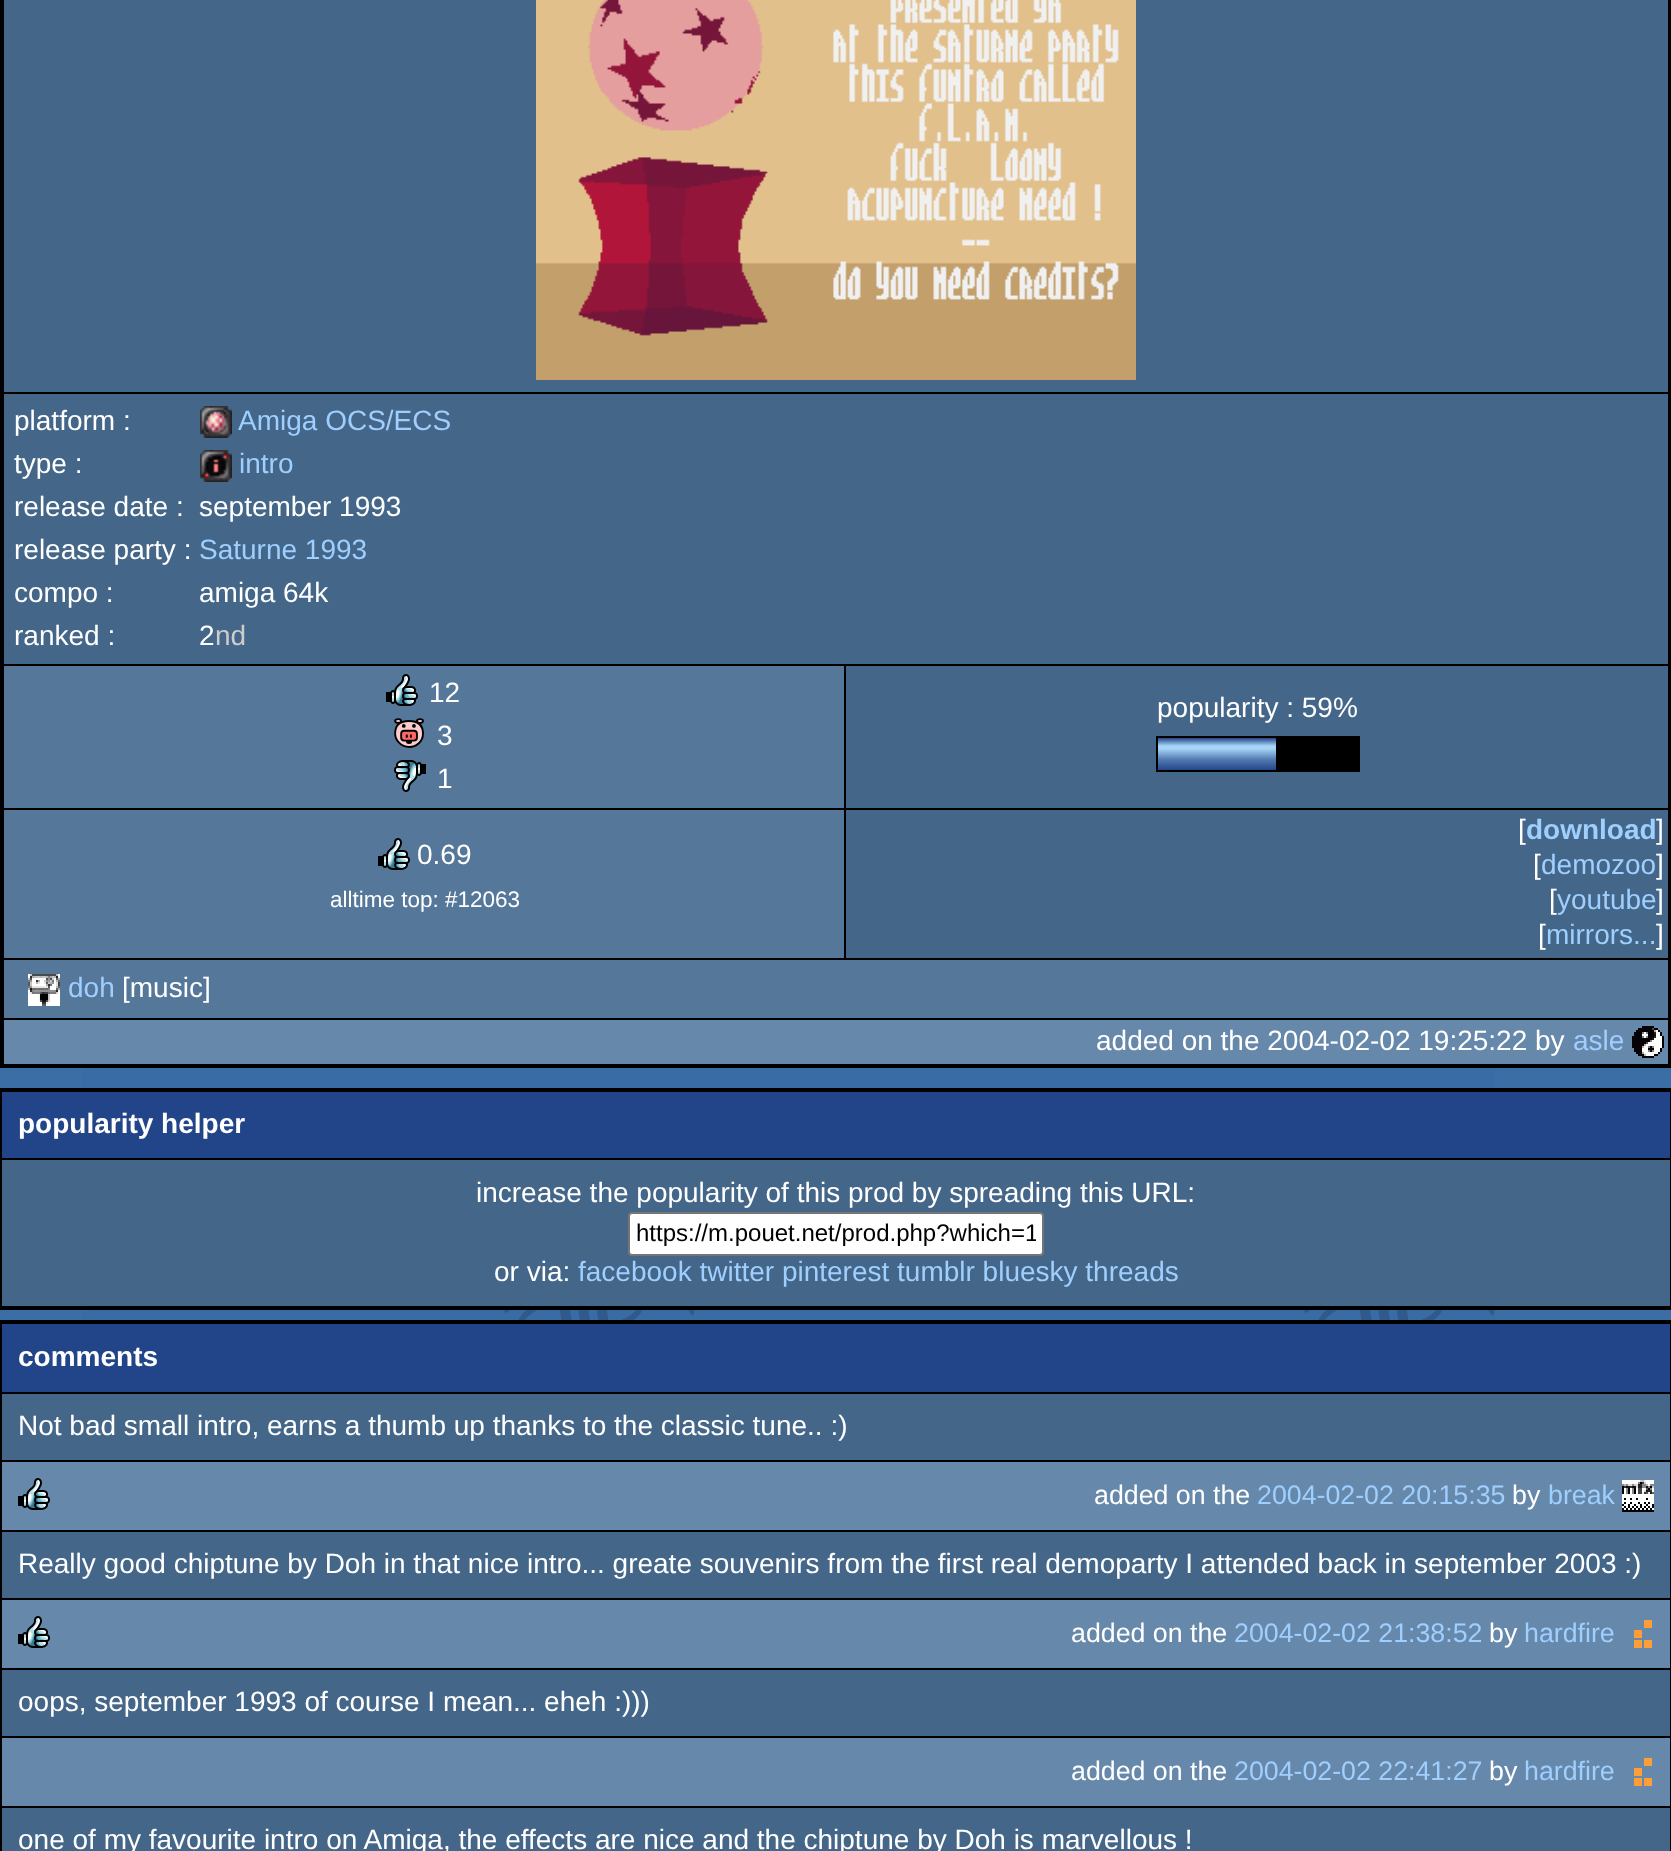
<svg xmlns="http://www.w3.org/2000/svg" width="1671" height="1851">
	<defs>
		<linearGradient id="g1" gradientUnits="userSpaceOnUse" x1="1217" y1="738" x2="1217" y2="770"><stop offset="0" stop-color="#24468A" /><stop offset="0.25" stop-color="#A7D6F8" /><stop offset="0.33" stop-color="#A7D6F8" /><stop offset="0.67" stop-color="#547AB2" /><stop offset="1" stop-color="#24468A" /></linearGradient>
		<clipPath id="clip1"><rect x="636" y="1220" width="400" height="28" /></clipPath>
	</defs>
	<rect width="100%" height="100%" fill="#3A6EA5" />
	<image x="82" y="1068" width="1413" height="252" href="assets/img1.png" />
	<rect x="0" y="0" width="1671" height="1068" fill="#000000" />
	<rect x="4" y="0" width="1664" height="392" fill="#446688" />
	<image x="536" y="0" width="600" height="380" href="assets/img2.png" />
	<rect x="4" y="394" width="1664" height="270" fill="#446688" />
	<text x="14" y="430" font-family="Liberation Sans" font-size="28" fill="#FFFFFF">platform :</text>
	<image x="200" y="406" width="32" height="32" href="assets/img3.png" />
	<text x="238" y="430" font-family="Liberation Sans" font-size="28" fill="#9FCFFF">Amiga OCS/ECS</text>
	<text x="14" y="473" font-family="Liberation Sans" font-size="28" fill="#FFFFFF">type :</text>
	<image x="200" y="450" width="32" height="32" href="assets/img4.png" />
	<text x="239" y="473" font-family="Liberation Sans" font-size="28" fill="#9FCFFF">intro</text>
	<g font-family="Liberation Sans" font-size="28" fill="#FFFFFF">
		<text x="14" y="516">release date :</text>
		<text x="199" y="516">september 1993</text>
		<text x="14" y="559">release party :</text>
	</g>
	<text x="199" y="559" font-family="Liberation Sans" font-size="28" fill="#9FCFFF">Saturne 1993</text>
	<g font-family="Liberation Sans" font-size="28" fill="#FFFFFF">
		<text x="14" y="602">compo :</text>
		<text x="199" y="602">amiga 64k</text>
		<text x="14" y="645">ranked :</text>
		<text x="199" y="645">2</text>
	</g>
	<text x="215" y="645" font-family="Liberation Sans" font-size="28" fill="#CCCCCC">nd</text>
	<rect x="4" y="666" width="840" height="142" fill="#557799" />
	<image x="386" y="674" width="32" height="32" href="assets/img5.png" />
	<text x="429" y="702" font-family="Liberation Sans" font-size="28" fill="#FFFFFF">12</text>
	<image x="394" y="718" width="30" height="30" href="assets/img6.png" />
	<text x="437" y="745" font-family="Liberation Sans" font-size="28" fill="#FFFFFF">3</text>
	<image x="394" y="760" width="32" height="32" href="assets/img7.png" />
	<text x="437" y="788" font-family="Liberation Sans" font-size="28" fill="#FFFFFF">1</text>
	<rect x="846" y="666" width="822" height="142" fill="#446688" />
	<text x="1157" y="717" font-family="Liberation Sans" font-size="28" fill="#FFFFFF">popularity : 59%</text>
	<rect x="1156" y="736" width="204" height="36" fill="#000000" />
	<rect x="1158" y="738" width="118" height="32" fill="url(#g1)" />
	<rect x="4" y="810" width="840" height="148" fill="#557799" />
	<image x="378" y="838" width="32" height="32" href="assets/img5.png" />
	<text x="417" y="864" font-family="Liberation Sans" font-size="28" fill="#FFFFFF">0.69</text>
	<text x="330" y="907" font-family="Liberation Sans" font-size="22.5" fill="#FFFFFF">alltime top: #12063</text>
	<rect x="846" y="810" width="822" height="148" fill="#446688" />
	<text x="1518" y="839" font-family="Liberation Sans" font-size="28" fill="#FFFFFF">[</text>
	<text x="1526" y="839" font-family="Liberation Sans" font-size="28" font-weight="700" fill="#9FCFFF">download</text>
	<g font-family="Liberation Sans" font-size="28" fill="#FFFFFF">
		<text x="1656" y="839">]</text>
		<text x="1533" y="874">[</text>
	</g>
	<text x="1541" y="874" font-family="Liberation Sans" font-size="28" fill="#9FCFFF">demozoo</text>
	<g font-family="Liberation Sans" font-size="28" fill="#FFFFFF">
		<text x="1656" y="874">]</text>
		<text x="1549" y="909">[</text>
	</g>
	<text x="1557" y="909" font-family="Liberation Sans" font-size="28" fill="#9FCFFF">youtube</text>
	<g font-family="Liberation Sans" font-size="28" fill="#FFFFFF">
		<text x="1656" y="909">]</text>
		<text x="1538" y="944">[</text>
	</g>
	<text x="1546" y="944" font-family="Liberation Sans" font-size="28" fill="#9FCFFF">mirrors...</text>
	<text x="1656" y="944" font-family="Liberation Sans" font-size="28" fill="#FFFFFF">]</text>
	<rect x="4" y="960" width="1664" height="58" fill="#557799" />
	<image x="28" y="974" width="32" height="32" href="assets/img8.png" />
	<text x="68" y="997" font-family="Liberation Sans" font-size="28" fill="#9FCFFF">doh</text>
	<text x="122" y="997" font-family="Liberation Sans" font-size="28" fill="#FFFFFF">[music]</text>
	<rect x="4" y="1020" width="1664" height="44" fill="#6688AA" />
	<text x="1096" y="1050" font-family="Liberation Sans" font-size="28" fill="#FFFFFF">added on the 2004-02-02 19:25:22 by</text>
	<text x="1573" y="1050" font-family="Liberation Sans" font-size="28" fill="#9FCFFF">asle</text>
	<image x="1632" y="1026" width="32" height="32" href="assets/img9.png" />
	<rect x="0" y="1088" width="1671" height="222" fill="#000000" />
	<rect x="2" y="1092" width="1668" height="66" fill="#224488" />
	<text x="18" y="1133" font-family="Liberation Sans" font-size="28" font-weight="700" fill="#FFFFFF">popularity helper</text>
	<rect x="2" y="1160" width="1668" height="146" fill="#446688" />
	<text x="476" y="1202" font-family="Liberation Sans" font-size="28" fill="#FFFFFF">increase the popularity of this prod by spreading this URL:</text>
	<rect x="629" y="1213" width="414" height="42" rx="3" fill="#FFFFFF" stroke="#767676" stroke-width="2" />
	<g clip-path="url(#clip1)">
		<text x="636" y="1241" font-family="Liberation Sans" font-size="24" fill="#000000">https://m.pouet.net/prod.php?which=1</text>
	</g>
	<text x="494" y="1281" font-family="Liberation Sans" font-size="28" fill="#FFFFFF">or via:</text>
	<text x="578" y="1281" font-family="Liberation Sans" font-size="28" fill="#9FCFFF">facebook twitter pinterest tumblr bluesky threads</text>
	<rect x="0" y="1320" width="1671" height="531" fill="#000000" />
	<rect x="2" y="1324" width="1668" height="68" fill="#224488" />
	<text x="18" y="1366" font-family="Liberation Sans" font-size="28" font-weight="700" fill="#FFFFFF">comments</text>
	<rect x="2" y="1394" width="1668" height="66" fill="#446688" />
	<text x="18" y="1435" font-family="Liberation Sans" font-size="28" fill="#FFFFFF">Not bad small intro, earns a thumb up thanks to the classic tune.. :)</text>
	<rect x="2" y="1462" width="1668" height="68" fill="#6688AA" />
	<image x="18" y="1478" width="32" height="32" href="assets/img10.png" />
	<text x="1094" y="1504" font-family="Liberation Sans" font-size="26.75" fill="#FFFFFF">added on the</text>
	<text x="1257" y="1504" font-family="Liberation Sans" font-size="26.75" fill="#9FCFFF">2004-02-02 20:15:35</text>
	<text x="1512" y="1504" font-family="Liberation Sans" font-size="26.75" fill="#FFFFFF">by</text>
	<text x="1548" y="1504" font-family="Liberation Sans" font-size="26.75" fill="#9FCFFF">break</text>
	<image x="1622" y="1480" width="32" height="32" href="assets/img11.png" />
	<rect x="2" y="1532" width="1668" height="66" fill="#446688" />
	<text x="18" y="1573" font-family="Liberation Sans" font-size="28" fill="#FFFFFF">Really good chiptune by Doh in that nice intro... greate souvenirs from the first real demoparty I attended back in september 2003 :)</text>
	<rect x="2" y="1600" width="1668" height="68" fill="#6688AA" />
	<image x="18" y="1616" width="32" height="32" href="assets/img10.png" />
	<text x="1071" y="1642" font-family="Liberation Sans" font-size="26.75" fill="#FFFFFF">added on the</text>
	<text x="1234" y="1642" font-family="Liberation Sans" font-size="26.75" fill="#9FCFFF">2004-02-02 21:38:52</text>
	<text x="1489" y="1642" font-family="Liberation Sans" font-size="26.75" fill="#FFFFFF">by</text>
	<text x="1524" y="1642" font-family="Liberation Sans" font-size="26.75" fill="#9FCFFF">hardfire</text>
	<image x="1634" y="1620" width="18" height="28" href="assets/img12.png" />
	<rect x="2" y="1670" width="1668" height="66" fill="#446688" />
	<text x="18" y="1711" font-family="Liberation Sans" font-size="28" fill="#FFFFFF">oops, september 1993 of course I mean... eheh :)))</text>
	<rect x="2" y="1738" width="1668" height="68" fill="#6688AA" />
	<text x="1071" y="1780" font-family="Liberation Sans" font-size="26.75" fill="#FFFFFF">added on the</text>
	<text x="1234" y="1780" font-family="Liberation Sans" font-size="26.75" fill="#9FCFFF">2004-02-02 22:41:27</text>
	<text x="1489" y="1780" font-family="Liberation Sans" font-size="26.75" fill="#FFFFFF">by</text>
	<text x="1524" y="1780" font-family="Liberation Sans" font-size="26.75" fill="#9FCFFF">hardfire</text>
	<image x="1634" y="1758" width="18" height="28" href="assets/img12.png" />
	<rect x="2" y="1808" width="1668" height="43" fill="#446688" />
	<text x="18" y="1849" font-family="Liberation Sans" font-size="28" fill="#FFFFFF">one of my favourite intro on Amiga, the effects are nice and the chiptune by Doh is marvellous !</text>
</svg>
